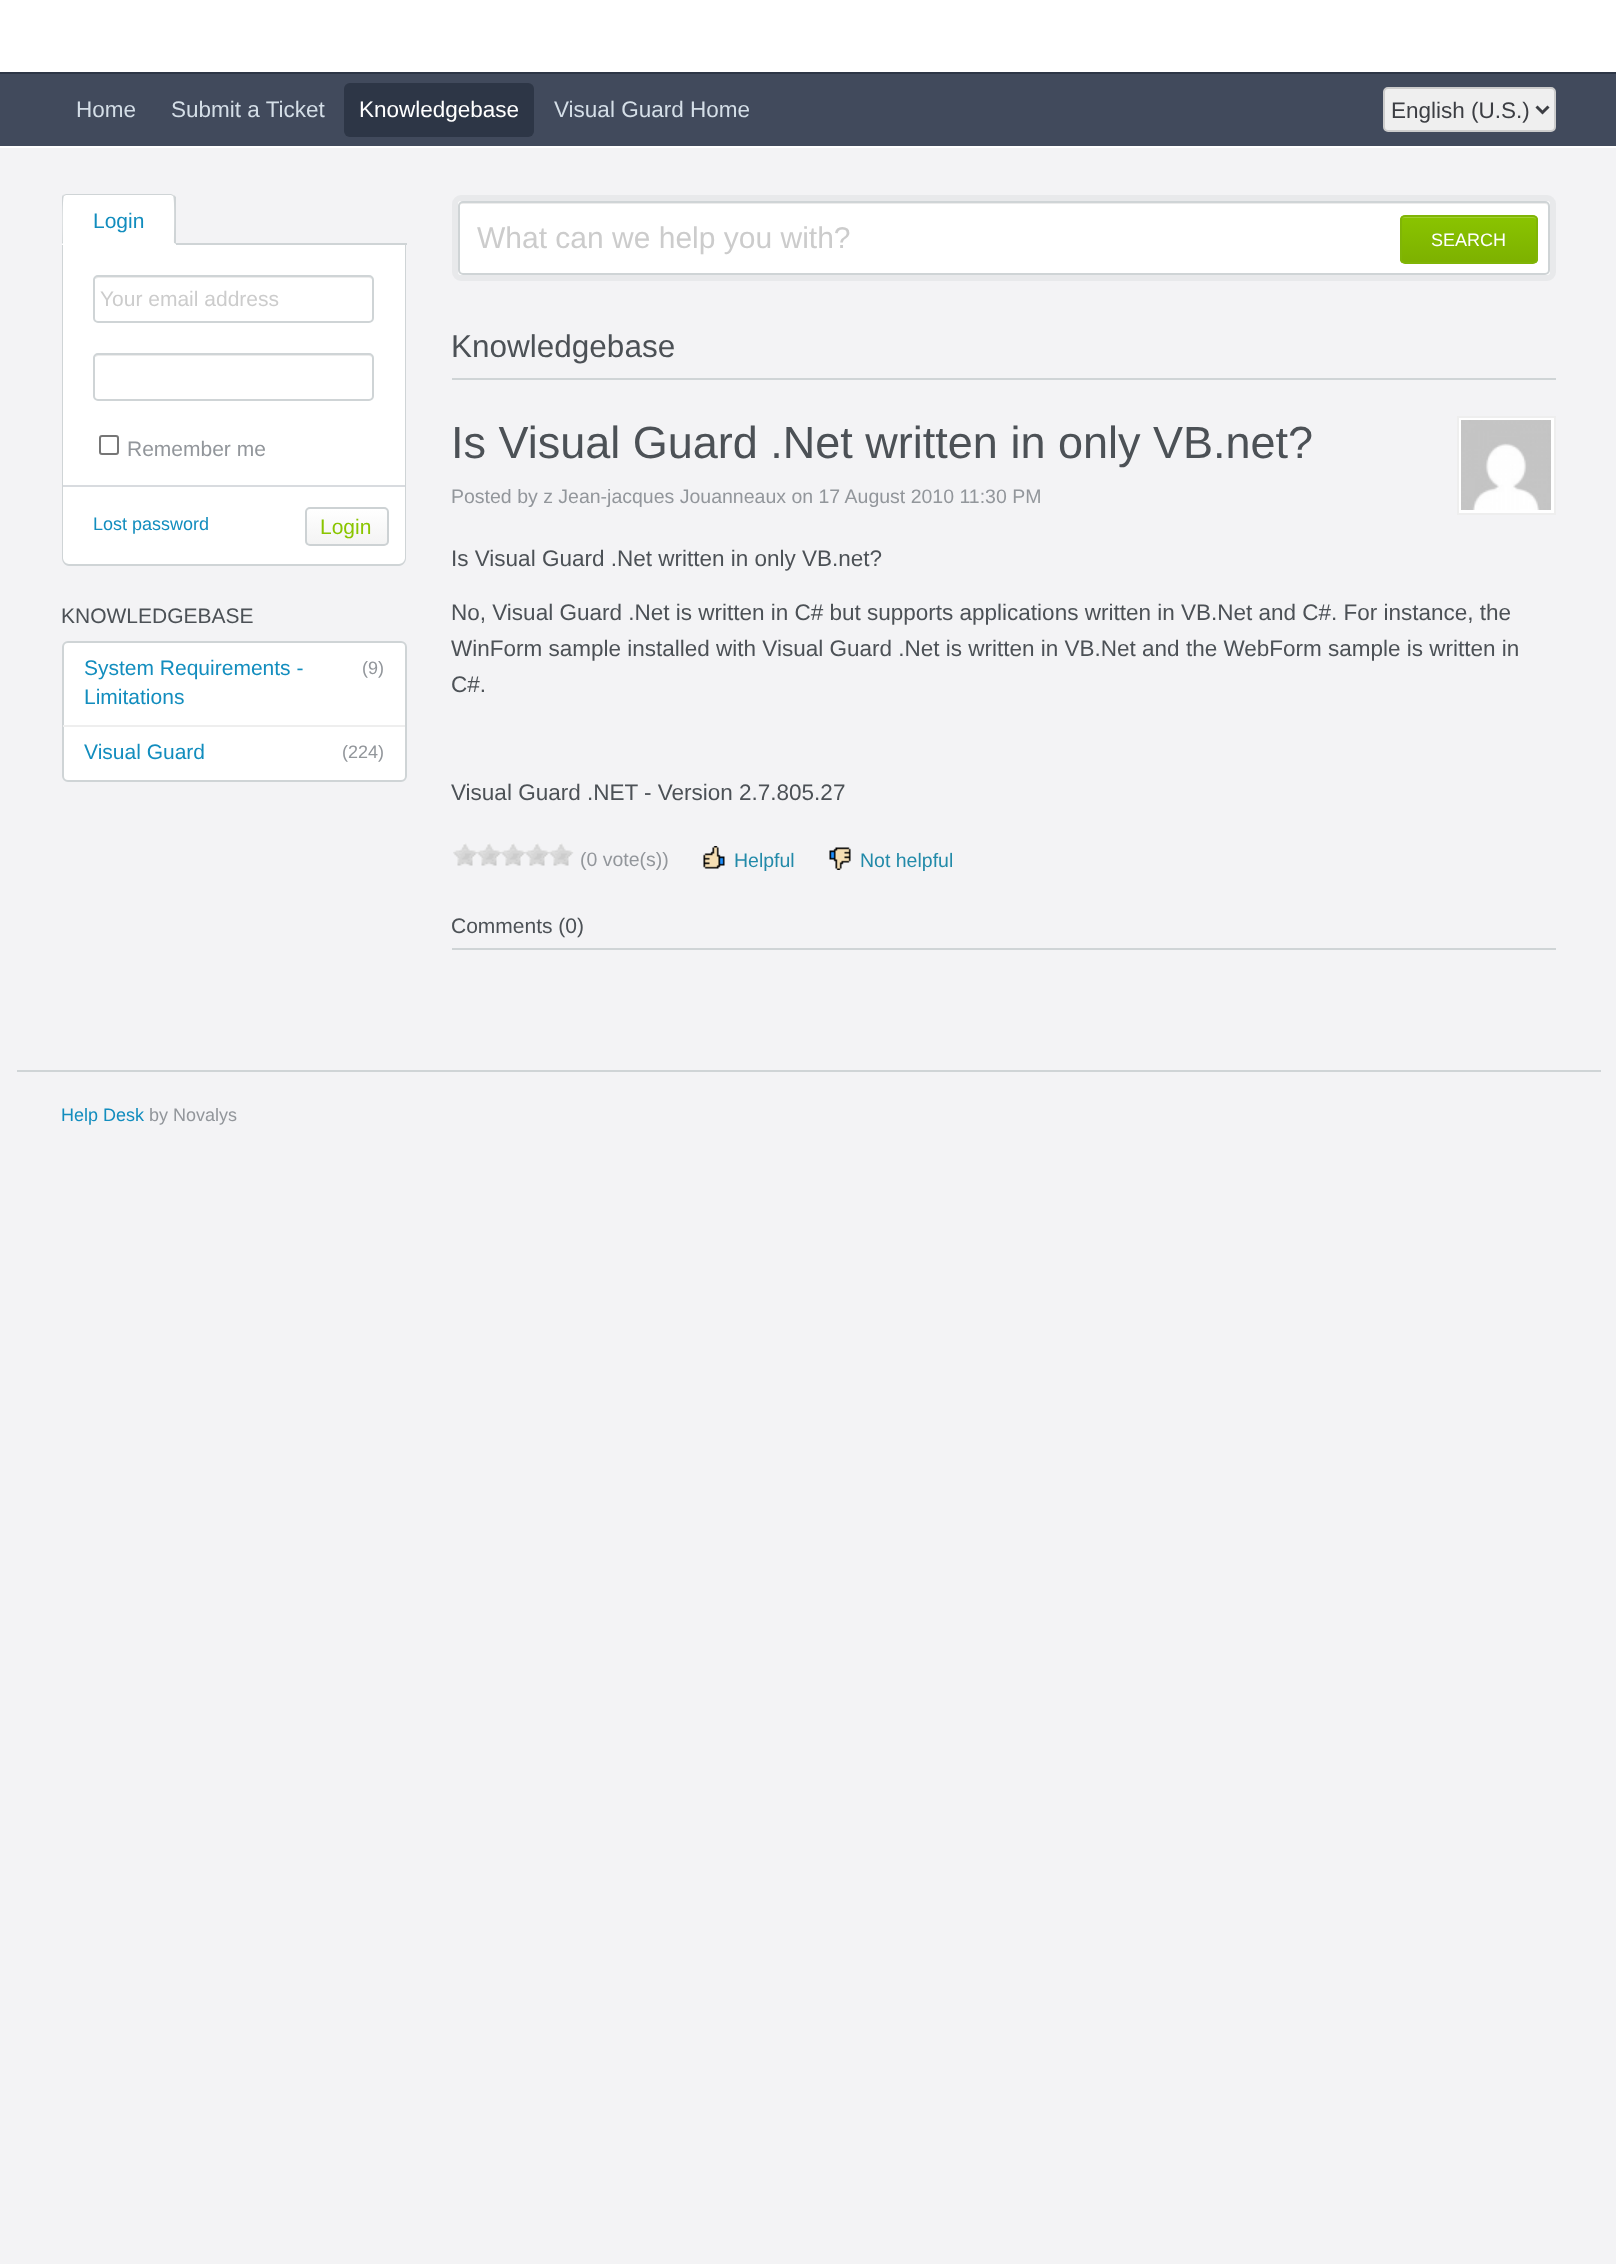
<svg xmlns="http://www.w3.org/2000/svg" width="1616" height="2264">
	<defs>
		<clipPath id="clip1"><rect x="305" y="507" width="84" height="39" rx="5" /></clipPath>
		<linearGradient id="g1" gradientUnits="userSpaceOnUse" x1="306" y1="509" x2="306" y2="545"><stop offset="0" stop-color="#FFFFFF" /><stop offset="1" stop-color="#F3F3F3" /></linearGradient>
		<clipPath id="clip2"><rect x="1400" y="215" width="138" height="49" rx="5" /></clipPath>
		<linearGradient id="g2" gradientUnits="userSpaceOnUse" x1="1401" y1="216" x2="1401" y2="263"><stop offset="0" stop-color="#8AC400" /><stop offset="1" stop-color="#7DB100" /></linearGradient>
	</defs>
	<rect width="100%" height="100%" fill="#F3F3F5" />
	<rect x="0" y="0" width="1616" height="72" fill="#FFFFFF" />
	<rect x="0" y="74" width="1616" height="72" fill="#414A5C" />
	<rect x="0" y="72" width="1616" height="2" fill="#2D3646" />
	<rect x="0" y="146" width="1616" height="2" fill="#FFFFFF" />
	<g font-family="Liberation Sans" font-size="22.5" fill="#D4DEE7">
		<text x="76" y="117">Home</text>
		<text x="171" y="117">Submit a Ticket</text>
	</g>
	<rect x="344" y="83" width="190" height="54" rx="6" fill="#2D3646" />
	<text x="359" y="117" font-family="Liberation Sans" font-size="22.5" fill="#FFFFFF">Knowledgebase</text>
	<text x="554" y="117" font-family="Liberation Sans" font-size="22.5" fill="#D4DEE7">Visual Guard Home</text>
	<rect x="1384" y="88" width="171" height="43" rx="4" fill="#EFEFEF" stroke="#CCCCCC" stroke-width="2" />
	<path d="M1536.5 106.5L1542.5 112.5L1548.5 106.5" fill="none" stroke="#3C3E43" stroke-width="3" />
	<text x="1391" y="118" font-family="Liberation Sans" font-size="22.5" fill="#3C3E43">English (U.S.)</text>
	<rect x="176" y="243" width="231" height="2" fill="#CFD4D6" />
	<path d="M63 245H405V558C405 561.5 402.5 564 399 564H69C65.5 564 63 561.5 63 558Z" fill="#FFFFFF" />
	<path d="M62 244H406V558C406 562 403 566 399 566H69C65 566 62 562 62 558ZM63 244H405V558C405 561 402 564 399 564H69C66 564 63 561 63 558Z" fill="#CFD4D6" fill-rule="evenodd" />
	<path d="M67 194H171C174 194 176 196 176 199V245H62V199C62 196 64 194 67 194Z" fill="#FFFFFF" />
	<path d="M66 194L63 195L64 196L66 195H171L173 196L174 195L171 194Z" fill="#CFD4D6" />
	<path d="M176 244L174 243C174 237 175 198 173 196L174 195L176 197Z" fill="#CFD4D6" />
	<path d="M175 244H62L63 243H174Z" fill="#FFFFFF" />
	<path d="M63 195C62 196 62 197 62 198V244L63 243C63 237 62 198 64 196Z" fill="#CFD4D6" />
	<text x="93" y="228" font-family="Liberation Sans" font-size="21" fill="#128DBE">Login</text>
	<path d="M98 278H369C371 278 372 279 372 280V279C372 277 371 276 369 276H98C96 276 95 277 95 279Z" fill="#ECECEC" />
	<rect x="94" y="276" width="279" height="46" rx="4" fill="none" stroke="#CFD4D6" stroke-width="2" />
	<text x="100" y="306" font-family="Liberation Sans" font-size="21" fill="#CCCCCC">Your email address</text>
	<path d="M98 356H369C371 356 372 357 372 358V357C372 355 371 354 369 354H98C96 354 95 355 95 357Z" fill="#ECECEC" />
	<rect x="94" y="354" width="279" height="46" rx="4" fill="none" stroke="#CFD4D6" stroke-width="2" />
	<rect x="100" y="436" width="18" height="18" rx="2" fill="none" stroke="#767676" stroke-width="2" />
	<text x="127" y="456" font-family="Liberation Sans" font-size="21" fill="#92969B">Remember me</text>
	<rect x="63" y="485" width="342" height="2" fill="#D8DBDF" />
	<text x="93" y="530" font-family="Liberation Sans" font-size="18" fill="#128DBE">Lost password</text>
	<g clip-path="url(#clip1)">
		<rect x="305" y="509" width="84" height="36" fill="url(#g1)" />
	</g>
	<rect x="306" y="508" width="82" height="37" rx="4" fill="none" stroke="#CDD2D4" stroke-width="2" />
	<text x="320" y="534" font-family="Liberation Sans" font-size="21" fill="#8AC500">Login</text>
	<text x="61" y="623" font-family="Liberation Sans" font-size="21" fill="#4C5156">KNOWLEDGEBASE</text>
	<rect x="63" y="642" width="343" height="139" rx="5" fill="#FFFFFF" stroke="#CFD4D6" stroke-width="2" />
	<rect x="63" y="725" width="342" height="2" fill="#EEEEEE" />
	<text x="84" y="675" font-family="Liberation Sans" font-size="21" fill="#128DBE">System Requirements -</text>
	<text x="362" y="674" font-family="Liberation Sans" font-size="18" fill="#92969B">(9)</text>
	<g font-family="Liberation Sans" font-size="21" fill="#128DBE">
		<text x="84" y="704">Limitations</text>
		<text x="84" y="759">Visual Guard</text>
	</g>
	<text x="342" y="758" font-family="Liberation Sans" font-size="18" fill="#92969B">(224)</text>
	<rect x="455" y="198" width="1098" height="80" rx="6" fill="#FFFFFF" stroke="#E8E9EB" stroke-width="6" />
	<path d="M462 204H1545C1547 204 1548 205 1548 207V206C1548 204 1547 203 1545 203H462C460 203 459 204 459 206V207C459 205 460 204 462 204Z" fill="#ECECEC" />
	<rect x="459" y="202" width="1090" height="72" rx="4" fill="none" stroke="#CFD4D6" stroke-width="2" />
	<text x="477" y="248" font-family="Liberation Sans" font-size="30" fill="#CCCCCC">What can we help you with?</text>
	<g clip-path="url(#clip2)">
		<rect x="1400" y="216" width="138" height="47" fill="url(#g2)" />
	</g>
	<path d="M1404 218H1533C1535 218 1536 219 1536 220C1536 218 1536 216 1534 216H1403C1401 216 1401 218 1401 220C1401 219 1402 218 1404 218Z" fill="#A1CF33" />
	<rect x="1401" y="216" width="136" height="47" rx="4" fill="none" stroke="#80B506" stroke-width="2" />
	<text x="1431" y="246" font-family="Liberation Sans" font-size="18" fill="#FFFFFF">SEARCH</text>
	<rect x="452" y="378" width="1104" height="2" fill="#CFD4D6" />
	<text x="451" y="357" font-family="Liberation Sans" font-size="31.5" fill="#4C5156">Knowledgebase</text>
	<text x="451" y="458" font-family="Liberation Sans" font-size="45" fill="#4C5156">Is Visual Guard .Net written in only VB.net?</text>
	<rect x="1458" y="417" width="97" height="97" fill="#FFFFFF" stroke="#EEEEEE" stroke-width="2" />
	<image x="1461" y="420" width="90" height="90" href="assets/img1.png" />
	<text x="451" y="503" font-family="Liberation Sans" font-size="19.5" fill="#92969B">Posted by z Jean-jacques Jouanneaux on 17 August 2010 11:30 PM</text>
	<g font-family="Liberation Sans" font-size="22.5" fill="#4C5156">
		<text x="451" y="566">Is Visual Guard .Net written in only VB.net?</text>
		<text x="451" y="620">No, Visual Guard .Net is written in C# but supports applications written in VB.Net and C#. For instance, the</text>
		<text x="451" y="656">WinForm sample installed with Visual Guard .Net is written in VB.Net and the WebForm sample is written in</text>
		<text x="451" y="692">C#.</text>
		<text x="451" y="800">Visual Guard .NET - Version 2.7.805.27</text>
	</g>
	<image x="453" y="843" width="121" height="23" href="assets/img2.png" />
	<text x="580" y="866" font-family="Liberation Sans" font-size="19.5" fill="#92969B">(0 vote(s))</text>
	<image x="703" y="846" width="22" height="23" href="assets/img3.png" />
	<text x="734" y="867" font-family="Liberation Sans" font-size="19.5" fill="#228AA9">Helpful</text>
	<image x="829" y="847" width="22" height="23" href="assets/img4.png" />
	<text x="860" y="867" font-family="Liberation Sans" font-size="19.5" fill="#228AA9">Not helpful</text>
	<rect x="452" y="948" width="1104" height="2" fill="#CFD4D6" />
	<text x="451" y="933" font-family="Liberation Sans" font-size="21" fill="#4C5156">Comments (0)</text>
	<rect x="17" y="1070" width="1584" height="2" fill="#CFD4D6" />
	<text x="61" y="1121" font-family="Liberation Sans" font-size="18" fill="#128DBE">Help Desk</text>
	<text x="149" y="1121" font-family="Liberation Sans" font-size="18" fill="#92969B">by Novalys</text>
</svg>
